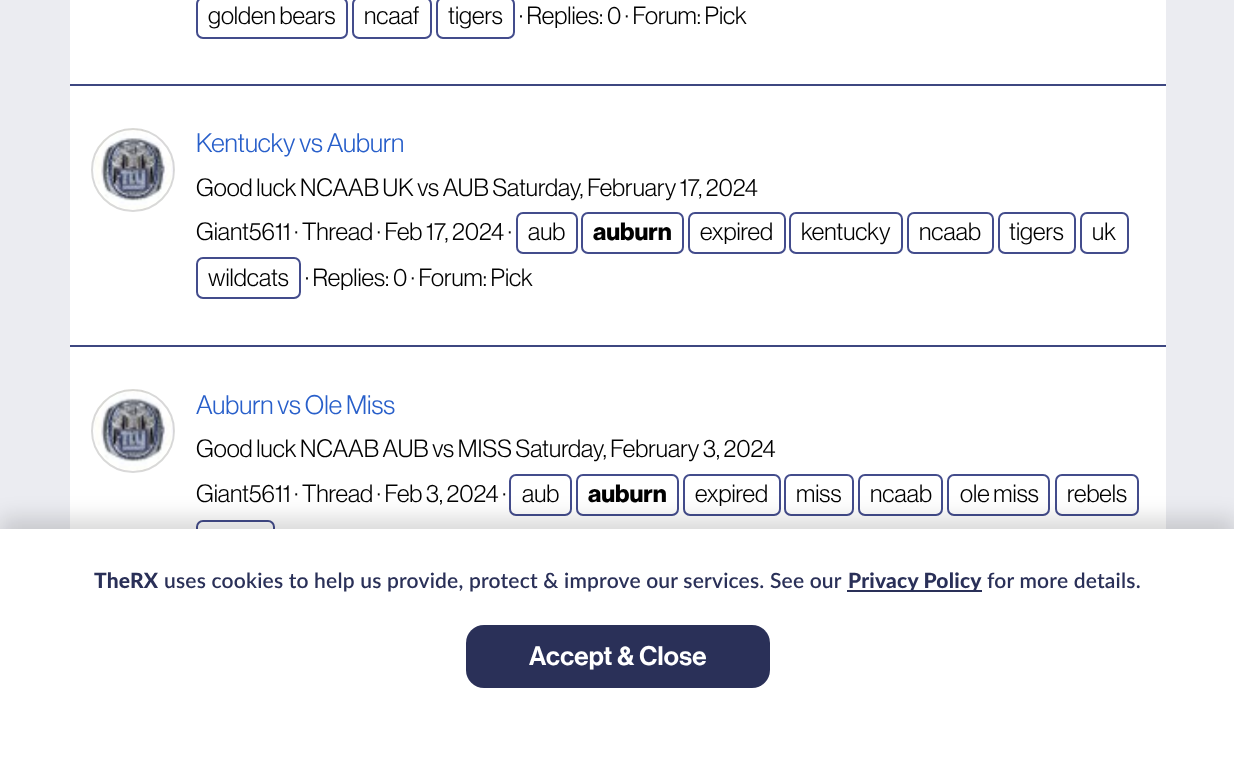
<svg xmlns="http://www.w3.org/2000/svg" width="1234" height="766">
	<rect width="100%" height="100%" fill="#EBECF1" />
	<rect x="70" y="0" width="1096" height="529" fill="#FFFFFF" />
	<rect x="197" y="-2" width="150" height="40" rx="6" fill="none" stroke="#434C8C" stroke-width="2" />
	<text x="208" y="24" font-family="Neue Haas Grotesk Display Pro" font-size="24.5" fill="#000000">golden bears</text>
	<rect x="353" y="-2" width="78" height="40" rx="6" fill="none" stroke="#434C8C" stroke-width="2" />
	<text x="364" y="24" font-family="Neue Haas Grotesk Display Pro" font-size="24.5" fill="#000000">ncaaf</text>
	<rect x="437" y="-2" width="77" height="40" rx="6" fill="none" stroke="#434C8C" stroke-width="2" />
	<g font-family="Neue Haas Grotesk Display Pro" font-size="24.5" fill="#000000">
		<text x="448" y="24">tigers</text>
		<text x="519" y="24">· Replies: 0 · Forum: Pick</text>
	</g>
	<rect x="70" y="84" width="1096" height="2" fill="#3E4781" />
	<image x="93" y="128" width="81" height="82" href="assets/img1.png" />
	<circle cx="133" cy="170" r="41" fill="none" stroke="#000000" stroke-opacity="0.15" stroke-width="2" />
	<text x="196" y="152" font-family="Neue Haas Grotesk Display Pro" font-size="26.25" fill="#285FCA">Kentucky vs Auburn</text>
	<g font-family="Neue Haas Grotesk Display Pro" font-size="24.5" fill="#000000">
		<text x="196" y="196">Good luck NCAAB UK vs AUB Saturday, February 17, 2024</text>
		<text x="196" y="240">Giant5611 · Thread · Feb 17, 2024 ·</text>
	</g>
	<rect x="517" y="213" width="60" height="40" rx="6" fill="none" stroke="#434C8C" stroke-width="2" />
	<text x="528" y="240" font-family="Neue Haas Grotesk Display Pro" font-size="24.5" fill="#000000">aub</text>
	<rect x="582" y="213" width="101" height="40" rx="6" fill="none" stroke="#434C8C" stroke-width="2" />
	<text x="593" y="240" font-family="Neue Haas Grotesk Display Pro" font-size="24.5" font-weight="700" fill="#000000">auburn</text>
	<rect x="689" y="213" width="96" height="40" rx="6" fill="none" stroke="#434C8C" stroke-width="2" />
	<text x="700" y="240" font-family="Neue Haas Grotesk Display Pro" font-size="24.5" fill="#000000">expired</text>
	<rect x="790" y="213" width="112" height="40" rx="6" fill="none" stroke="#434C8C" stroke-width="2" />
	<text x="801" y="240" font-family="Neue Haas Grotesk Display Pro" font-size="24.5" fill="#000000">kentucky</text>
	<rect x="908" y="213" width="85" height="40" rx="6" fill="none" stroke="#434C8C" stroke-width="2" />
	<text x="919" y="240" font-family="Neue Haas Grotesk Display Pro" font-size="24.5" fill="#000000">ncaab</text>
	<rect x="999" y="213" width="76" height="40" rx="6" fill="none" stroke="#434C8C" stroke-width="2" />
	<text x="1009" y="240" font-family="Neue Haas Grotesk Display Pro" font-size="24.5" fill="#000000">tigers</text>
	<rect x="1081" y="213" width="47" height="40" rx="6" fill="none" stroke="#434C8C" stroke-width="2" />
	<text x="1092" y="240" font-family="Neue Haas Grotesk Display Pro" font-size="24.5" fill="#000000">uk</text>
	<rect x="197" y="258" width="103" height="40" rx="6" fill="none" stroke="#434C8C" stroke-width="2" />
	<g font-family="Neue Haas Grotesk Display Pro" font-size="24.5" fill="#000000">
		<text x="208" y="286">wildcats</text>
		<text x="305" y="286">· Replies: 0 · Forum: Pick</text>
	</g>
	<rect x="70" y="345" width="1096" height="2" fill="#3E4781" />
	<image x="94" y="389" width="80" height="82" href="assets/img2.png" />
	<circle cx="133" cy="431" r="41" fill="none" stroke="#000000" stroke-opacity="0.15" stroke-width="2" />
	<text x="196" y="414" font-family="Neue Haas Grotesk Display Pro" font-size="26.25" fill="#285FCA">Auburn vs Ole Miss</text>
	<g font-family="Neue Haas Grotesk Display Pro" font-size="24.5" fill="#000000">
		<text x="196" y="457">Good luck NCAAB AUB vs MISS Saturday, February 3, 2024</text>
		<text x="196" y="502">Giant5611 · Thread · Feb 3, 2024 ·</text>
	</g>
	<rect x="510" y="475" width="61" height="40" rx="6" fill="none" stroke="#434C8C" stroke-width="2" />
	<text x="522" y="502" font-family="Neue Haas Grotesk Display Pro" font-size="24.5" fill="#000000">aub</text>
	<rect x="577" y="475" width="101" height="40" rx="6" fill="none" stroke="#434C8C" stroke-width="2" />
	<text x="588" y="502" font-family="Neue Haas Grotesk Display Pro" font-size="24.5" font-weight="700" fill="#000000">auburn</text>
	<rect x="684" y="475" width="96" height="40" rx="6" fill="none" stroke="#434C8C" stroke-width="2" />
	<text x="695" y="502" font-family="Neue Haas Grotesk Display Pro" font-size="24.5" fill="#000000">expired</text>
	<rect x="785" y="475" width="68" height="40" rx="6" fill="none" stroke="#434C8C" stroke-width="2" />
	<text x="796" y="502" font-family="Neue Haas Grotesk Display Pro" font-size="24.5" fill="#000000">miss</text>
	<rect x="859" y="475" width="83" height="40" rx="6" fill="none" stroke="#434C8C" stroke-width="2" />
	<text x="870" y="502" font-family="Neue Haas Grotesk Display Pro" font-size="24.5" fill="#000000">ncaab</text>
	<rect x="948" y="475" width="101" height="40" rx="6" fill="none" stroke="#434C8C" stroke-width="2" />
	<text x="960" y="502" font-family="Neue Haas Grotesk Display Pro" font-size="24.5" fill="#000000">ole miss</text>
	<rect x="1056" y="475" width="82" height="40" rx="6" fill="none" stroke="#434C8C" stroke-width="2" />
	<text x="1067" y="502" font-family="Neue Haas Grotesk Display Pro" font-size="24.5" fill="#000000">rebels</text>
	<rect x="197" y="521" width="77" height="40" rx="6" fill="none" stroke="#434C8C" stroke-width="2" />
	<rect x="0" y="518" width="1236" height="238" fill="#000000" fill-opacity="0.15" filter="blur(10.5px)" />
	<rect x="0" y="529" width="1234" height="237" fill="#FFFFFF" />
	<text x="94" y="588" font-family="Lato" font-size="21" font-weight="900" letter-spacing="0.2" fill="#2A3058">TheRX</text>
	<text x="164" y="588" font-family="Lato" font-size="21" font-weight="600" letter-spacing="0.2" fill="#2A3058">uses cookies to help us provide, protect &amp; improve our services. See our</text>
	<rect x="847" y="590" width="135" height="2" fill="#2A3058" />
	<text x="848" y="588" font-family="Lato" font-size="21" font-weight="900" letter-spacing="0.2" fill="#2A3058">Privacy Policy</text>
	<text x="987" y="588" font-family="Lato" font-size="21" font-weight="600" letter-spacing="0.2" fill="#2A3058">for more details.</text>
	<rect x="466" y="625" width="304" height="63" rx="18" fill="#2A3058" />
	<text x="529" y="665" font-family="Neue Haas Grotesk Display Pro" font-size="26.25" font-weight="500" letter-spacing="0.25" fill="#FFFFFF">Accept &amp; Close</text>
</svg>
